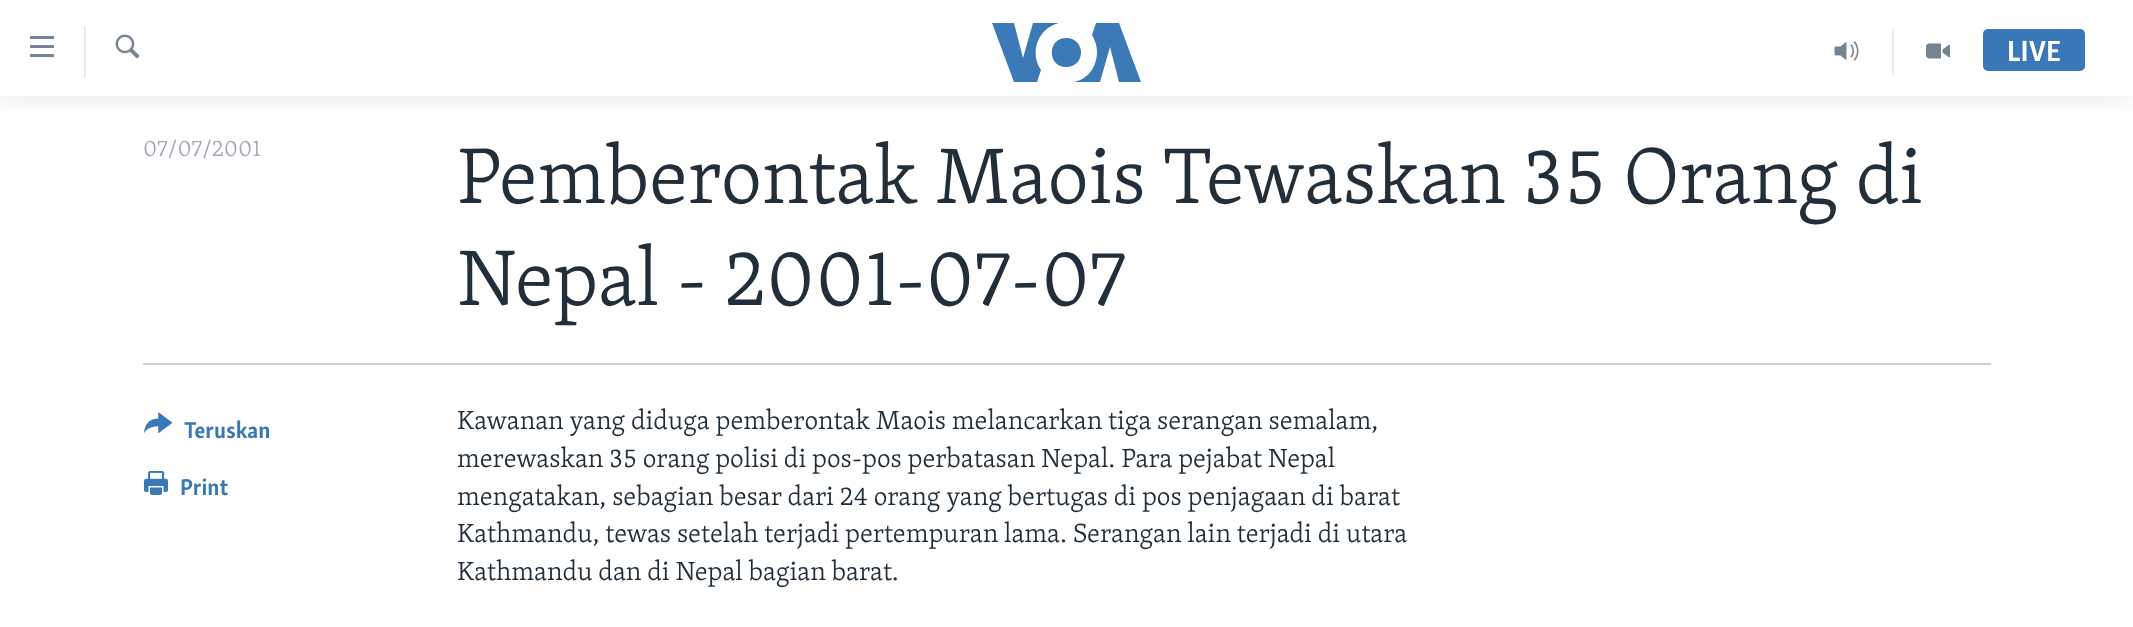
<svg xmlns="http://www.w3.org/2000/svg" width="2133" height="627">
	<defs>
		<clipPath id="clip1"><rect x="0" y="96" width="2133" height="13" /></clipPath>
	</defs>
	<rect width="100%" height="100%" fill="#FFFFFF" />
	<g clip-path="url(#clip1)">
		<rect x="0" y="0" width="2133" height="96" fill="#000000" fill-opacity="0.1" filter="blur(15px)" />
	</g>
	<image x="30" y="36" width="24" height="21" href="assets/img1.png" />
	<rect x="84" y="26" width="2" height="52" fill="#EBEBEB" />
	<image x="115" y="34" width="25" height="25" href="assets/img2.png" />
	<path d="M1041 70L1037 82H1014L992 23H1014L1023 58L1033 23H1059C1038 28 1029 53 1041 70ZM1066 38C1047 38 1047 67 1066 67C1086 67 1086 38 1066 38ZM1097 52C1097 67 1088 79 1074 82H1100L1110 47L1119 82H1141L1119 23H1096L1092 35C1095 40 1097 46 1097 52Z" fill="#3B79B7" />
	<rect x="1892" y="29" width="2" height="46" fill="#EBEBEB" />
	<image x="1834" y="41" width="25" height="20" href="assets/img3.png" />
	<image x="1926" y="43" width="24" height="16" href="assets/img4.png" />
	<rect x="1983" y="29" width="102" height="42" rx="5" fill="#3A79B7" />
	<text x="2007" y="61" font-family="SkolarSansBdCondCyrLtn" font-size="30" font-weight="700" fill="#FFFFFF">LIVE</text>
	<text x="143" y="156" font-family="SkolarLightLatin" font-size="23.5" font-weight="300" fill="#A1AAB4">07/07/2001</text>
	<g font-family="SkolarLightLatin" font-size="81" font-weight="300" fill="#222F3A">
		<text x="457" y="203">Pemberontak Maois Tewaskan 35 Orang di</text>
		<text x="457" y="305">Nepal - 2001-07-07</text>
	</g>
	<rect x="143" y="363" width="1848" height="2" fill="#CBD1D6" />
	<image x="144" y="412" width="29" height="22" href="assets/img5.png" />
	<text x="184" y="438" font-family="SkolarSansBdCondCyrLtn" font-size="23.5" font-weight="700" fill="#3A79B7">Teruskan</text>
	<image x="144" y="471" width="24" height="24" href="assets/img6.png" />
	<text x="180" y="495" font-family="SkolarSansBdCondCyrLtn" font-size="23.5" font-weight="700" fill="#3A79B7">Print</text>
	<g font-family="SkolarLightLatin" font-size="27" font-weight="300" fill="#222F3A">
		<text x="457" y="429">Kawanan yang diduga pemberontak Maois melancarkan tiga serangan semalam,</text>
		<text x="457" y="467">merewaskan 35 orang polisi di pos-pos perbatasan Nepal. Para pejabat Nepal</text>
		<text x="457" y="505">mengatakan, sebagian besar dari 24 orang yang bertugas di pos penjagaan di barat</text>
		<text x="457" y="542">Kathmandu, tewas setelah terjadi pertempuran lama. Serangan lain terjadi di utara</text>
		<text x="457" y="580">Kathmandu dan di Nepal bagian barat.</text>
	</g>
</svg>
